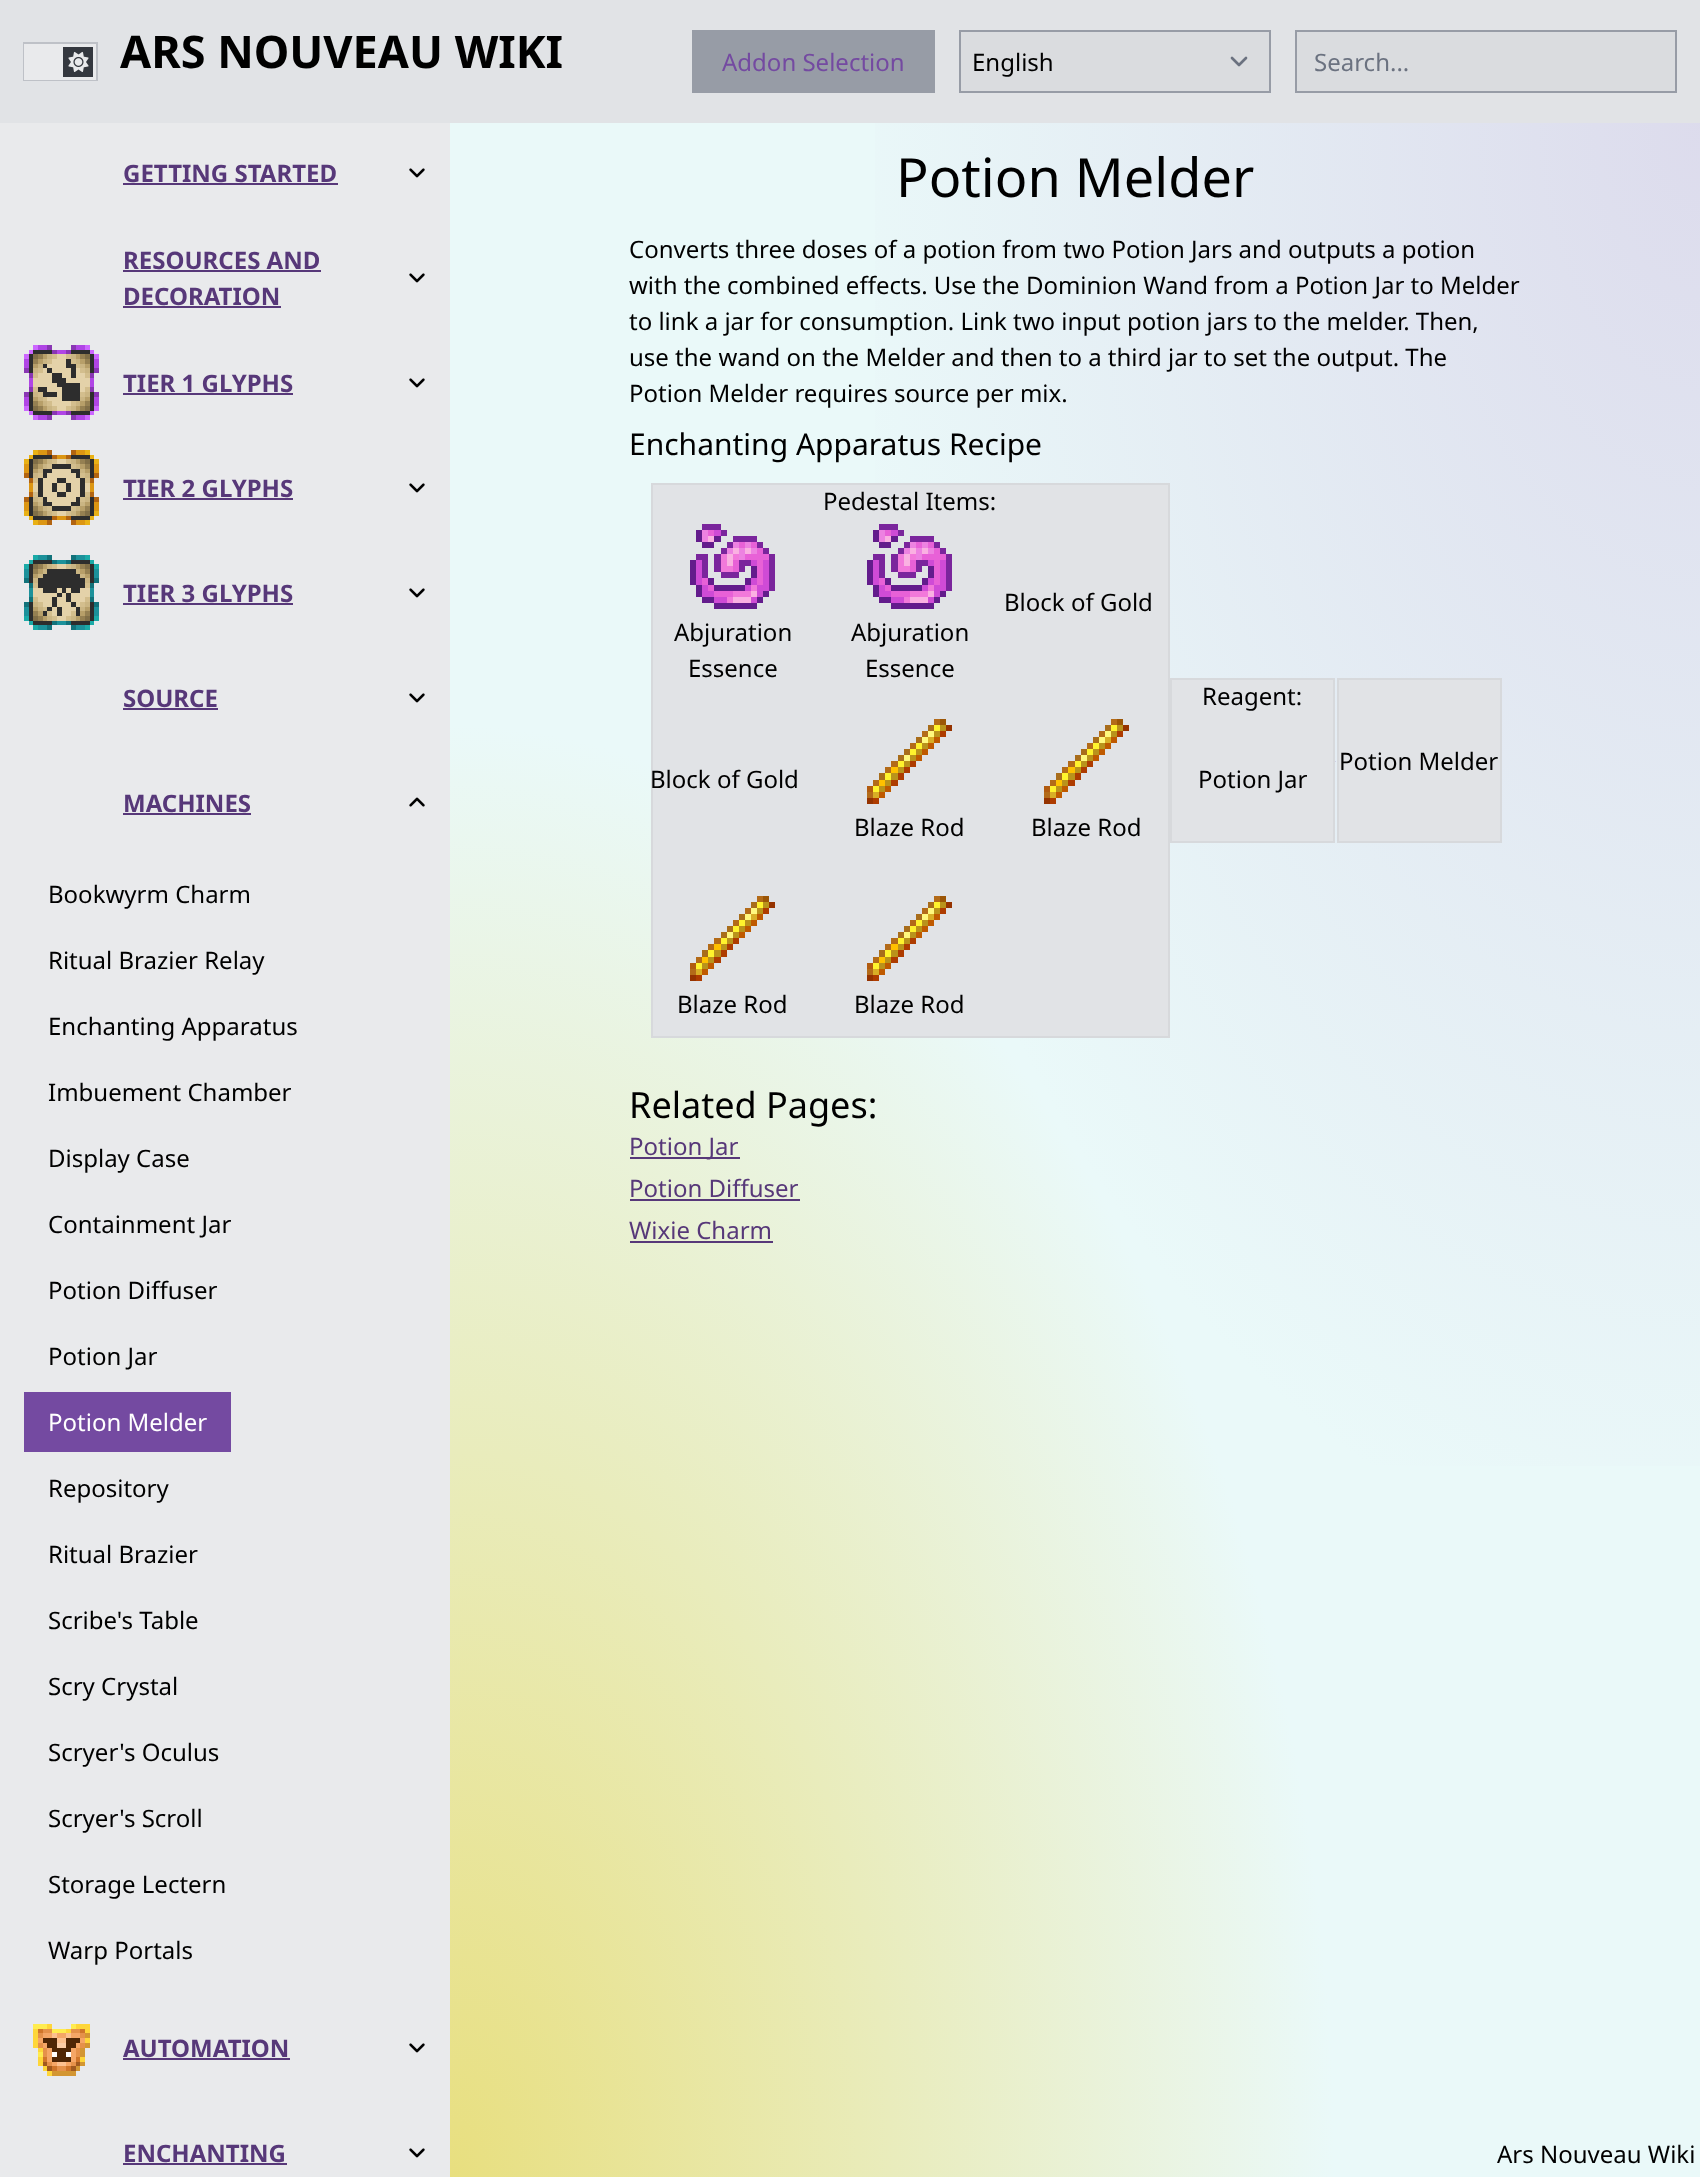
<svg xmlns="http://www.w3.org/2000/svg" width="1700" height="2177">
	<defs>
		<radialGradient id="g1" gradientUnits="userSpaceOnUse" cx="0" cy="0" r="1" gradientTransform="matrix(1769 0 0 2906 450 2178)"><stop offset="0" stop-color="#E8DF7F" /><stop offset="0.5" stop-color="#EAF9F9" /></radialGradient>
		<radialGradient id="g2" gradientUnits="userSpaceOnUse" cx="0" cy="0" r="1" gradientTransform="matrix(1769 0 0 2906 1701 123)"><stop offset="0" stop-color="#CFBEE0" stop-opacity="0.5" /><stop offset="0.5" stop-color="#CFBEE0" stop-opacity="0" /></radialGradient>
	</defs>
	<rect width="100%" height="100%" fill="#E9EAEC" />
	<rect x="0" y="0" width="1700" height="123" fill="#E1E3E6" />
	<rect x="24" y="43" width="73" height="37" fill="none" stroke="#BEC1C7" stroke-width="2" />
	<rect x="24" y="44" width="72" height="36" fill="#E9EAEC" />
	<rect x="63" y="47" width="30" height="30" fill="#34383F" />
	<image x="68" y="51" width="21" height="21" href="assets/img1.png" />
	<text x="120" y="68" font-family="Noto Sans" font-size="45" font-weight="700" fill="#000000">ARS NOUVEAU WIKI</text>
	<rect x="692" y="30" width="243" height="63" fill="#979CA6" />
	<text x="722" y="71" font-family="Noto Sans" font-size="24" fill="#744AA1">Addon Selection</text>
	<rect x="961" y="32" width="308" height="59" fill="#DADCDF" />
	<path d="M1232 58L1239 65L1246 58" fill="none" stroke="#6B7280" stroke-width="2.7" stroke-linecap="round" stroke-linejoin="round" />
	<rect x="960" y="31" width="310" height="61" fill="none" stroke="#979CA6" stroke-width="2" />
	<text x="972" y="71" font-family="Noto Sans" font-size="24" fill="#000000">English</text>
	<rect x="1296" y="31" width="380" height="61" fill="#DADCDF" stroke="#979CA6" stroke-width="2" />
	<text x="1314" y="71" font-family="Noto Sans" font-size="24" fill="#6B7280">Search...</text>
	<text x="123" y="182" font-family="Noto Sans" font-size="24" font-weight="700" fill="#573879">GETTING STARTED</text>
	<rect x="123" y="183" width="215" height="2" fill="#573879" />
	<image x="409" y="168" width="16" height="10" href="assets/img2.png" />
	<text x="123" y="269" font-family="Noto Sans" font-size="24" font-weight="700" fill="#573879">RESOURCES AND</text>
	<rect x="123" y="270" width="198" height="2" fill="#573879" />
	<text x="123" y="305" font-family="Noto Sans" font-size="24" font-weight="700" fill="#573879">DECORATION</text>
	<rect x="123" y="306" width="158" height="2" fill="#573879" />
	<image x="409" y="273" width="16" height="10" href="assets/img2.png" />
	<image x="24" y="345" width="75" height="75" href="assets/img3.png" />
	<text x="123" y="392" font-family="Noto Sans" font-size="24" font-weight="700" fill="#573879">TIER 1 GLYPHS</text>
	<rect x="123" y="393" width="170" height="2" fill="#573879" />
	<image x="409" y="378" width="16" height="10" href="assets/img2.png" />
	<image x="24" y="450" width="75" height="75" href="assets/img4.png" />
	<text x="123" y="497" font-family="Noto Sans" font-size="24" font-weight="700" fill="#573879">TIER 2 GLYPHS</text>
	<rect x="123" y="498" width="170" height="2" fill="#573879" />
	<image x="409" y="483" width="16" height="10" href="assets/img2.png" />
	<image x="24" y="555" width="75" height="75" href="assets/img5.png" />
	<text x="123" y="602" font-family="Noto Sans" font-size="24" font-weight="700" fill="#573879">TIER 3 GLYPHS</text>
	<rect x="123" y="603" width="170" height="2" fill="#573879" />
	<image x="409" y="588" width="16" height="10" href="assets/img2.png" />
	<text x="123" y="707" font-family="Noto Sans" font-size="24" font-weight="700" fill="#573879">SOURCE</text>
	<rect x="123" y="708" width="95" height="2" fill="#573879" />
	<image x="409" y="693" width="16" height="10" href="assets/img2.png" />
	<text x="123" y="812" font-family="Noto Sans" font-size="24" font-weight="700" fill="#573879">MACHINES</text>
	<rect x="123" y="813" width="128" height="2" fill="#573879" />
	<image x="409" y="797" width="16" height="10" href="assets/img6.png" />
	<g font-family="Noto Sans" font-size="24" fill="#000000">
		<text x="48" y="903">Bookwyrm Charm</text>
		<text x="48" y="969">Ritual Brazier Relay</text>
		<text x="48" y="1035">Enchanting Apparatus</text>
		<text x="48" y="1101">Imbuement Chamber</text>
		<text x="48" y="1167">Display Case</text>
		<text x="48" y="1233">Containment Jar</text>
		<text x="48" y="1299">Potion Diffuser</text>
		<text x="48" y="1365">Potion Jar</text>
	</g>
	<rect x="24" y="1392" width="207" height="60" fill="#744AA1" />
	<text x="48" y="1431" font-family="Noto Sans" font-size="24" fill="#FFFFFF">Potion Melder</text>
	<g font-family="Noto Sans" font-size="24" fill="#000000">
		<text x="48" y="1497">Repository</text>
		<text x="48" y="1563">Ritual Brazier</text>
		<text x="48" y="1629">Scribe's Table</text>
		<text x="48" y="1695">Scry Crystal</text>
		<text x="48" y="1761">Scryer's Oculus</text>
		<text x="48" y="1827">Scryer's Scroll</text>
		<text x="48" y="1893">Storage Lectern</text>
		<text x="48" y="1959">Warp Portals</text>
	</g>
	<image x="33" y="2024" width="57" height="52" href="assets/img7.png" />
	<text x="123" y="2057" font-family="Noto Sans" font-size="24" font-weight="700" fill="#573879">AUTOMATION</text>
	<rect x="123" y="2058" width="167" height="2" fill="#573879" />
	<image x="409" y="2043" width="16" height="10" href="assets/img2.png" />
	<text x="123" y="2162" font-family="Noto Sans" font-size="24" font-weight="700" fill="#573879">ENCHANTING</text>
	<rect x="123" y="2163" width="164" height="2" fill="#573879" />
	<image x="409" y="2148" width="16" height="10" href="assets/img2.png" />
	<rect x="450" y="123" width="1250" height="2054" fill="url(#g1)" />
	<rect x="875" y="123" width="825" height="1343" fill="url(#g2)" />
	<text x="896" y="197" font-family="Noto Sans" font-size="54" fill="#000000">Potion Melder</text>
	<g font-family="Noto Sans" font-size="24" fill="#000000">
		<text x="629" y="258">Converts three doses of a potion from two Potion Jars and outputs a potion</text>
		<text x="629" y="294">with the combined effects. Use the Dominion Wand from a Potion Jar to Melder</text>
		<text x="629" y="330">to link a jar for consumption. Link two input potion jars to the melder. Then,</text>
		<text x="629" y="366">use the wand on the Melder and then to a third jar to set the output. The</text>
		<text x="629" y="402">Potion Melder requires source per mix.</text>
	</g>
	<text x="629" y="455" font-family="Noto Sans" font-size="30" fill="#000000">Enchanting Apparatus Recipe</text>
	<rect x="652" y="484" width="517" height="553" fill="#E1E3E6" stroke="#D7D9DC" stroke-width="2" />
	<g font-family="Noto Sans" font-size="24" fill="#000000">
		<text x="823" y="510">Pedestal Items:</text>
		<text x="1004" y="611">Block of Gold</text>
	</g>
	<image x="690" y="524" width="85" height="85" href="assets/img8.png" />
	<g font-family="Noto Sans" font-size="24" fill="#000000">
		<text x="674" y="641">Abjuration</text>
		<text x="688" y="677">Essence</text>
	</g>
	<image x="867" y="524" width="85" height="85" href="assets/img8.png" />
	<g font-family="Noto Sans" font-size="24" fill="#000000">
		<text x="851" y="641">Abjuration</text>
		<text x="865" y="677">Essence</text>
		<text x="650" y="788">Block of Gold</text>
	</g>
	<image x="867" y="719" width="85" height="85" href="assets/img9.png" />
	<text x="854" y="836" font-family="Noto Sans" font-size="24" fill="#000000">Blaze Rod</text>
	<image x="1044" y="719" width="85" height="85" href="assets/img9.png" />
	<text x="1031" y="836" font-family="Noto Sans" font-size="24" fill="#000000">Blaze Rod</text>
	<image x="690" y="896" width="85" height="85" href="assets/img9.png" />
	<text x="677" y="1013" font-family="Noto Sans" font-size="24" fill="#000000">Blaze Rod</text>
	<image x="867" y="896" width="85" height="85" href="assets/img9.png" />
	<text x="854" y="1013" font-family="Noto Sans" font-size="24" fill="#000000">Blaze Rod</text>
	<rect x="1171" y="679" width="163" height="163" fill="#E1E3E6" stroke="#D7D9DC" stroke-width="2" />
	<g font-family="Noto Sans" font-size="24" fill="#000000">
		<text x="1202" y="705">Reagent:</text>
		<text x="1198" y="788">Potion Jar</text>
	</g>
	<rect x="1335" y="761" width="1" height="1" fill="#D0D0E5" />
	<rect x="1338" y="679" width="163" height="163" fill="#E1E3E6" stroke="#D7D9DC" stroke-width="2" />
	<text x="1339" y="770" font-family="Noto Sans" font-size="24" fill="#000000">Potion Melder</text>
	<text x="629" y="1118" font-family="Noto Sans" font-size="36" fill="#000000">Related Pages:</text>
	<rect x="630" y="1157" width="110" height="2" fill="#573879" />
	<g font-family="Noto Sans" font-size="24" fill="#573879">
		<text x="629" y="1155">Potion Jar</text>
		<text x="629" y="1197">Potion Diffuser</text>
	</g>
	<rect x="630" y="1199" width="170" height="2" fill="#573879" />
	<text x="629" y="1239" font-family="Noto Sans" font-size="24" fill="#573879">Wixie Charm</text>
	<rect x="630" y="1241" width="143" height="2" fill="#573879" />
	<text x="1497" y="2163" font-family="Noto Sans" font-size="24" fill="#000000">Ars Nouveau Wiki</text>
</svg>
